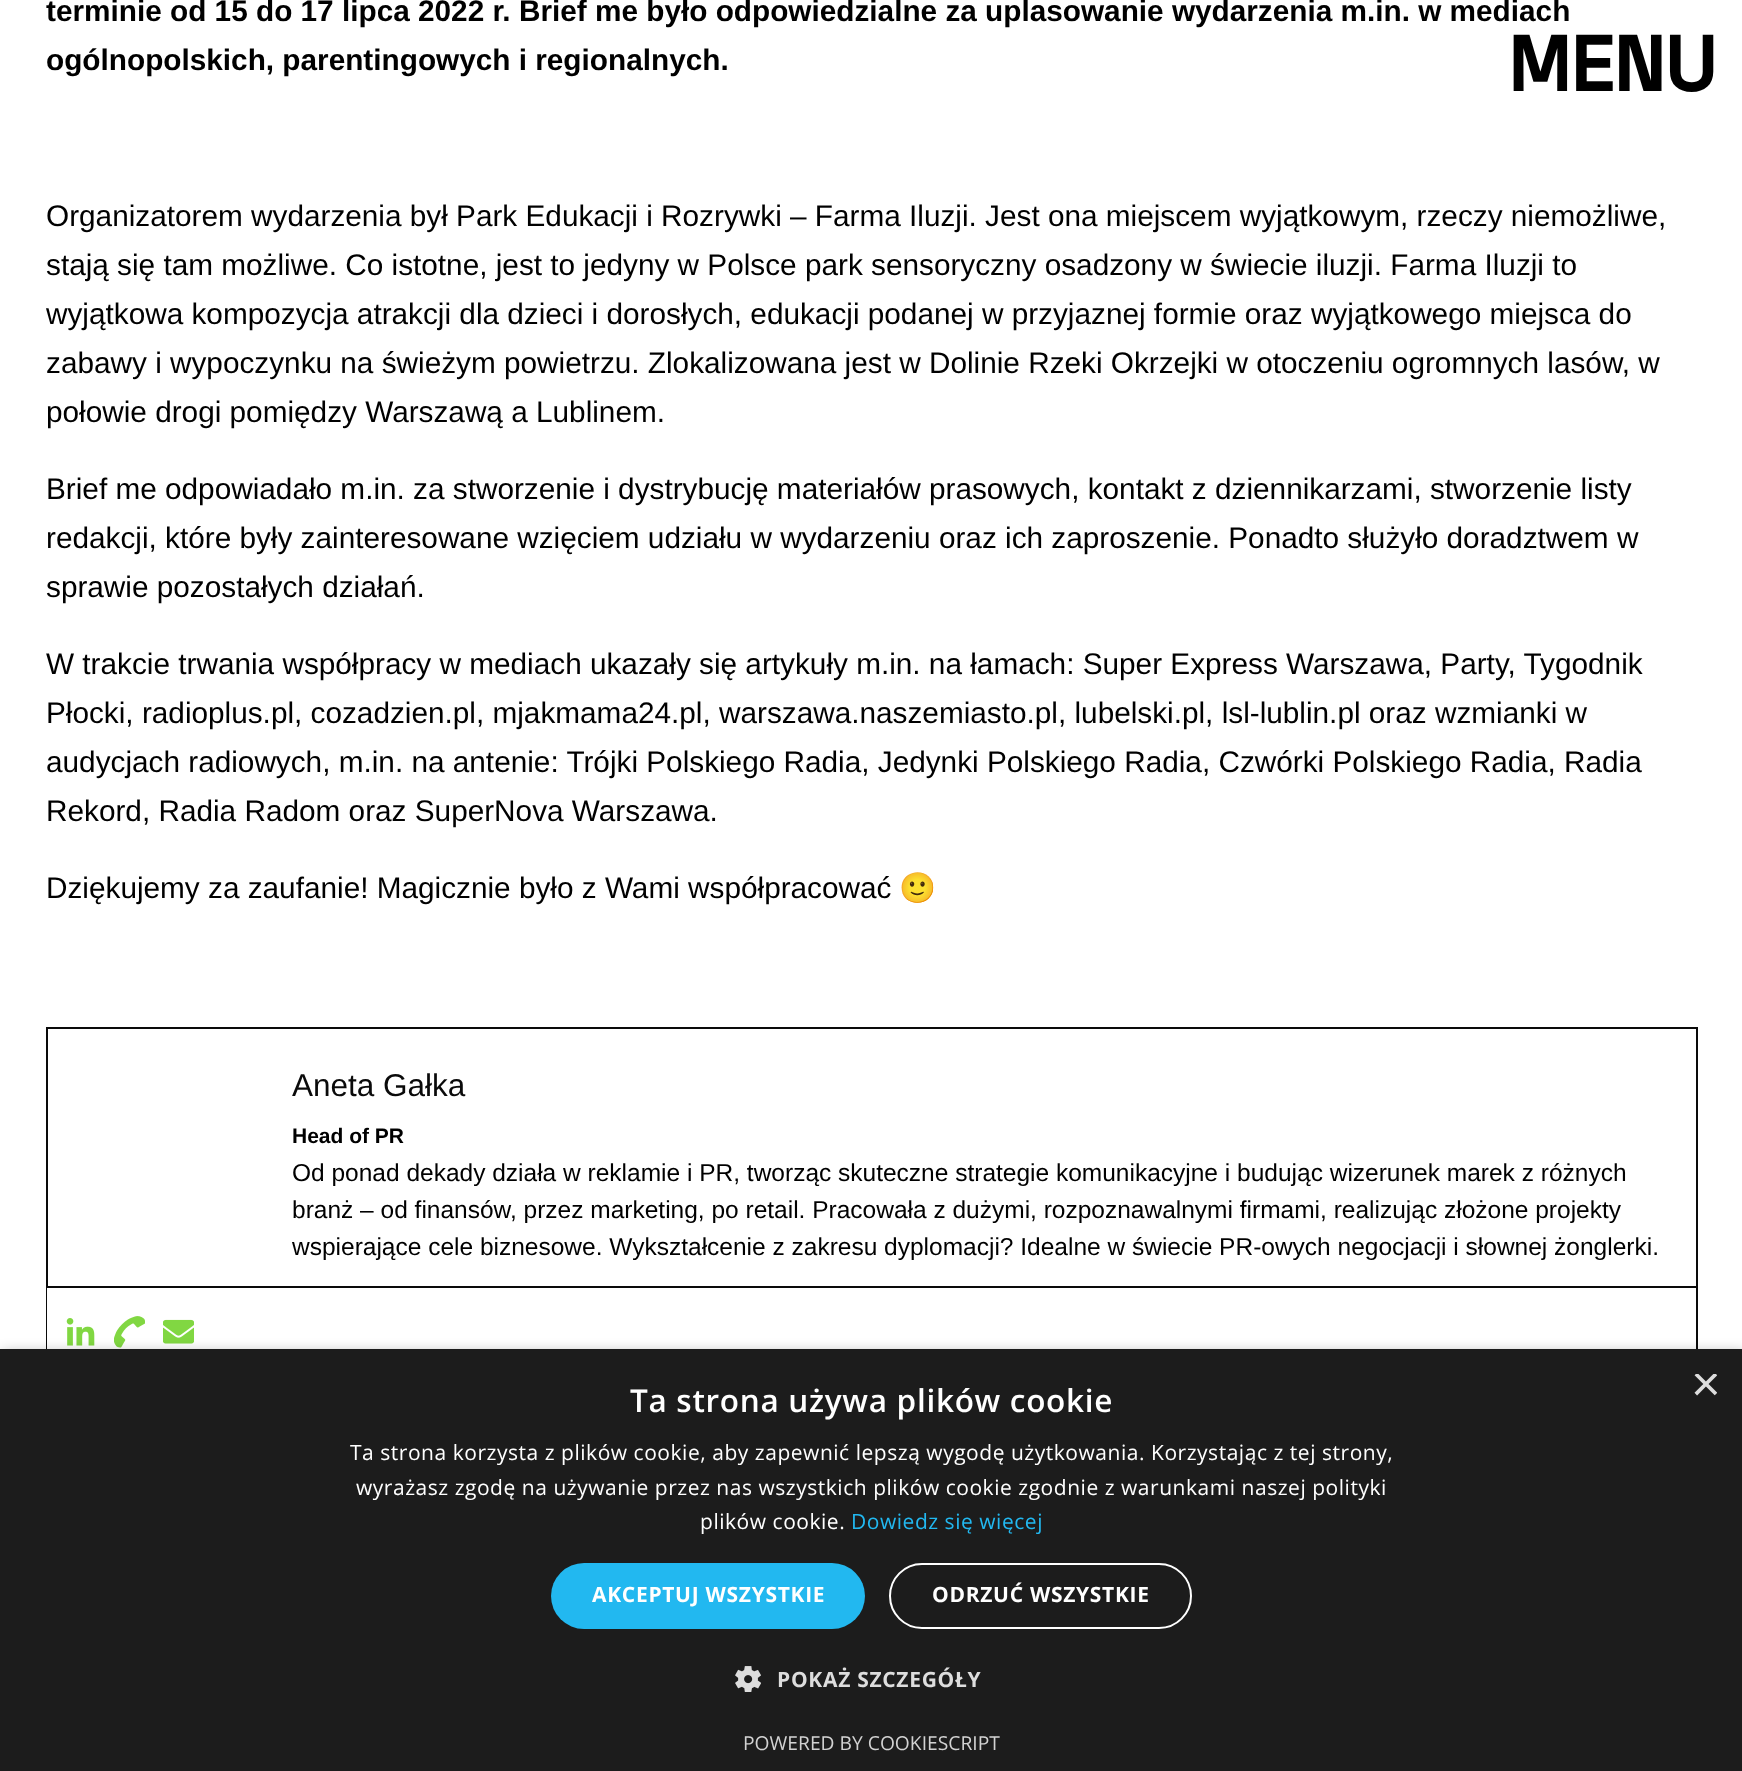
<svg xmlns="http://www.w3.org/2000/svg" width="1742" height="1771">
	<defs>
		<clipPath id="clip1"><rect x="1691" y="1374" width="26" height="26" /></clipPath>
	</defs>
	<rect width="100%" height="100%" fill="#FFFFFF" />
	<g font-family="Liberation Sans" font-size="29.75" font-weight="700" fill="#000000">
		<text x="46" y="21">terminie od 15 do 17 lipca 2022 r. Brief me było odpowiedzialne za uplasowanie wydarzenia m.in. w mediach</text>
		<text x="46" y="70">ogólnopolskich, parentingowych i regionalnych.</text>
	</g>
	<g font-family="Liberation Sans" font-size="29.75" fill="#000000">
		<text x="46" y="226">Organizatorem wydarzenia był Park Edukacji i Rozrywki – Farma Iluzji. Jest ona miejscem wyjątkowym, rzeczy niemożliwe,</text>
		<text x="46" y="275">stają się tam możliwe. Co istotne, jest to jedyny w Polsce park sensoryczny osadzony w świecie iluzji. Farma Iluzji to</text>
		<text x="46" y="324">wyjątkowa kompozycja atrakcji dla dzieci i dorosłych, edukacji podanej w przyjaznej formie oraz wyjątkowego miejsca do</text>
		<text x="46" y="373">zabawy i wypoczynku na świeżym powietrzu. Zlokalizowana jest w Dolinie Rzeki Okrzejki w otoczeniu ogromnych lasów, w</text>
		<text x="46" y="422">połowie drogi pomiędzy Warszawą a Lublinem.</text>
		<text x="46" y="499">Brief me odpowiadało m.in. za stworzenie i dystrybucję materiałów prasowych, kontakt z dziennikarzami, stworzenie listy</text>
		<text x="46" y="548">redakcji, które były zainteresowane wzięciem udziału w wydarzeniu oraz ich zaproszenie. Ponadto służyło doradztwem w</text>
		<text x="46" y="597">sprawie pozostałych działań.</text>
		<text x="46" y="674">W trakcie trwania współpracy w mediach ukazały się artykuły m.in. na łamach: Super Express Warszawa, Party, Tygodnik</text>
		<text x="46" y="723">Płocki, radioplus.pl, cozadzien.pl, mjakmama24.pl, warszawa.naszemiasto.pl, lubelski.pl, lsl-lublin.pl oraz wzmianki w</text>
		<text x="46" y="772">audycjach radiowych, m.in. na antenie: Trójki Polskiego Radia, Jedynki Polskiego Radia, Czwórki Polskiego Radia, Radia</text>
		<text x="46" y="821">Rekord, Radia Radom oraz SuperNova Warszawa.</text>
		<text x="46" y="898">Dziękujemy za zaufanie! Magicznie było z Wami współpracować</text>
	</g>
	<text x="899" y="898" font-family="Noto Color Emoji" font-size="29.75" fill="#000000">🙂</text>
	<rect x="47" y="1028" width="1650" height="347" fill="none" stroke="#0A0A0A" stroke-width="2" />
	<text x="292" y="1096" font-family="Liberation Sans" font-size="31.5" fill="#0A0A0A">Aneta Gałka</text>
	<text x="292" y="1143" font-family="Liberation Sans" font-size="21" font-weight="700" fill="#000000">Head of PR</text>
	<g font-family="Liberation Sans" font-size="24.5" fill="#000000">
		<text x="292" y="1181">Od ponad dekady działa w reklamie i PR, tworząc skuteczne strategie komunikacyjne i budując wizerunek marek z różnych</text>
		<text x="292" y="1218">branż – od finansów, przez marketing, po retail. Pracowała z dużymi, rozpoznawalnymi firmami, realizując złożone projekty</text>
		<text x="292" y="1255">wspierające cele biznesowe. Wykształcenie z zakresu dyplomacji? Idealne w świecie PR-owych negocjacji i słownej żonglerki.</text>
	</g>
	<rect x="47" y="1288" width="1" height="61" fill="#FFFFFF" />
	<rect x="47" y="1286" width="1649" height="2" fill="#0A0A0A" />
	<image x="66" y="1318" width="29" height="28" href="assets/img1.png" />
	<image x="114" y="1316" width="31" height="32" href="assets/img2.png" />
	<image x="163" y="1319" width="31" height="25" href="assets/img3.png" />
	<text x="1508" y="91" font-family="Space Grotesk" font-size="77" font-weight="700" fill="#000000">MENU</text>
	<rect x="2" y="1353" width="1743" height="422" fill="#000000" fill-opacity="0.35" filter="blur(7px)" />
	<rect x="0" y="1349" width="1742" height="422" fill="#1C1C1C" />
	<text x="630" y="1412" font-family="Open Sans" font-size="31.5" font-weight="600" letter-spacing="0.7" fill="#FFFFFF">Ta strona używa plików cookie</text>
	<g clip-path="url(#clip1)">
		<text x="1691" y="1401" font-family="Liberation Sans" font-size="51" fill="#DDDDDD">×</text>
	</g>
	<g font-family="Open Sans" font-size="21" letter-spacing="0.53" fill="#FFFFFF">
		<text x="350" y="1460">Ta strona korzysta z plików cookie, aby zapewnić lepszą wygodę użytkowania. Korzystając z tej strony,</text>
		<text x="356" y="1495">wyrażasz zgodę na używanie przez nas wszystkich plików cookie zgodnie z warunkami naszej polityki</text>
		<text x="700" y="1529">plików cookie.</text>
	</g>
	<text x="851" y="1529" font-family="Open Sans" font-size="21" letter-spacing="0.53" fill="#22B8F0">Dowiedz się więcej</text>
	<rect x="551" y="1563" width="314" height="66" rx="33" fill="#22B8F0" />
	<text x="592" y="1602" font-family="Open Sans" font-size="21" font-weight="700" letter-spacing="0.7" fill="#FFFFFF">AKCEPTUJ WSZYSTKIE</text>
	<rect x="890" y="1564" width="301" height="64" rx="32" fill="none" stroke="#FFFFFF" stroke-width="2" />
	<text x="932" y="1602" font-family="Open Sans" font-size="21" font-weight="700" letter-spacing="0.7" fill="#FFFFFF">ODRZUĆ WSZYSTKIE</text>
	<image x="735" y="1666" width="26" height="26" href="assets/img4.png" />
	<text x="777" y="1687" font-family="Open Sans" font-size="21" font-weight="700" letter-spacing="0.7" fill="#DDDDDD">POKAŻ SZCZEGÓŁY</text>
	<text x="743" y="1750" font-family="Open Sans" font-size="19.25" fill="#D2D2D2">POWERED BY COOKIESCRIPT</text>
</svg>
